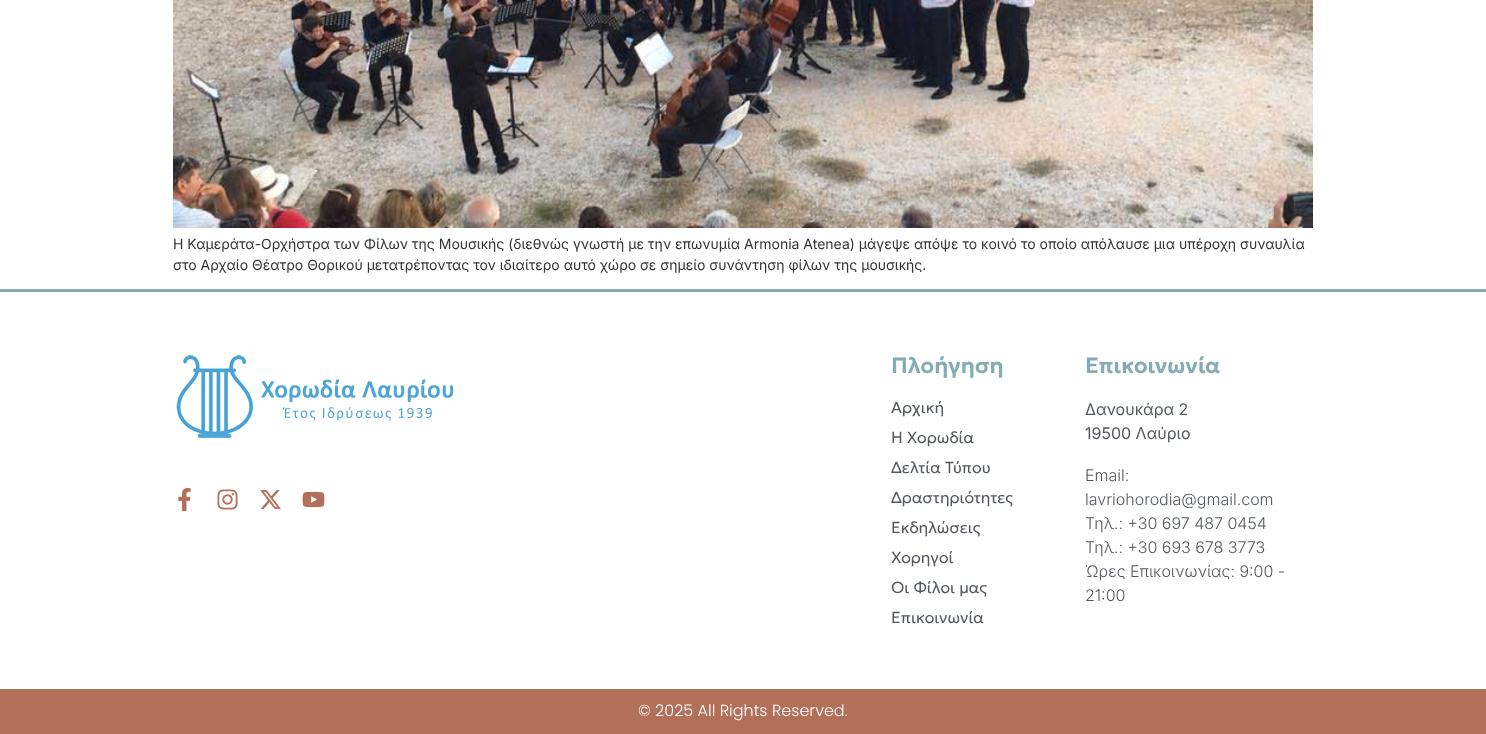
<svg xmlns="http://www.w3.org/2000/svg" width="1486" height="734">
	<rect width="100%" height="100%" fill="#FFFFFF" />
	<image x="173" y="0" width="1140" height="228" href="assets/img1.png" />
	<g font-family="Inter" font-size="14" fill="#333333">
		<text x="173" y="249">H Καμεράτα-Ορχήστρα των Φίλων της Μουσικής (διεθνώς γνωστή με την επωνυμία Αrmonia Atenea) μάγεψε απόψε το κοινό το οποίο απόλαυσε μια υπέροχη συναυλία</text>
		<text x="173" y="270">στο Αρχαίο Θέατρο Θορικού μετατρέποντας τον ιδιαίτερο αυτό χώρο σε σημείο συνάντηση φίλων της μουσικής.</text>
	</g>
	<rect x="0" y="289" width="1486" height="3" fill="#85ACB5" />
	<image x="176" y="355" width="278" height="83" href="assets/img2.png" />
	<image x="178" y="488" width="13" height="23" href="assets/img3.png" />
	<image x="217" y="489" width="21" height="21" href="assets/img4.png" />
	<image x="260" y="490" width="21" height="19" href="assets/img5.png" />
	<image x="302" y="491" width="23" height="17" href="assets/img6.png" />
	<text x="891" y="373" font-family="Geologica" font-size="22" font-weight="600" fill="#85ACB5">Πλοήγηση</text>
	<g font-family="Geologica" font-size="16" font-weight="300" fill="#54595F">
		<text x="891" y="413">Αρχική</text>
		<text x="891" y="443">Η Χορωδία</text>
		<text x="891" y="473">Δελτία Τύπου</text>
		<text x="891" y="503">Δραστηριότητες</text>
		<text x="891" y="533">Εκδηλώσεις</text>
		<text x="891" y="563">Χορηγοί</text>
		<text x="891" y="593">Οι Φίλοι μας</text>
		<text x="891" y="623">Επικοινωνία</text>
	</g>
	<text x="1085" y="373" font-family="Geologica" font-size="22" font-weight="600" fill="#85ACB5">Επικοινωνία</text>
	<g font-family="Inter" font-size="16" fill="#54595F">
		<text x="1085" y="415">Δανουκάρα 2</text>
		<text x="1085" y="439">19500 Λαύριο</text>
	</g>
	<g font-family="Inter" font-size="16" font-weight="300" fill="#54595F">
		<text x="1085" y="481">Email:</text>
		<text x="1085" y="505">lavriohorodia@gmail.com</text>
		<text x="1085" y="529">Τηλ.: +30 697 487 0454</text>
		<text x="1085" y="553">Τηλ.: +30 693 678 3773</text>
		<text x="1085" y="577">Ώρες Επικοινωνίας: 9:00 -</text>
		<text x="1085" y="601">21:00</text>
	</g>
	<rect x="0" y="689" width="1486" height="45" fill="#B2705A" />
	<text x="638" y="716" font-family="Poppins" font-size="16" font-weight="300" fill="#FFFFFF">© 2025 All Rights Reserved.</text>
</svg>
